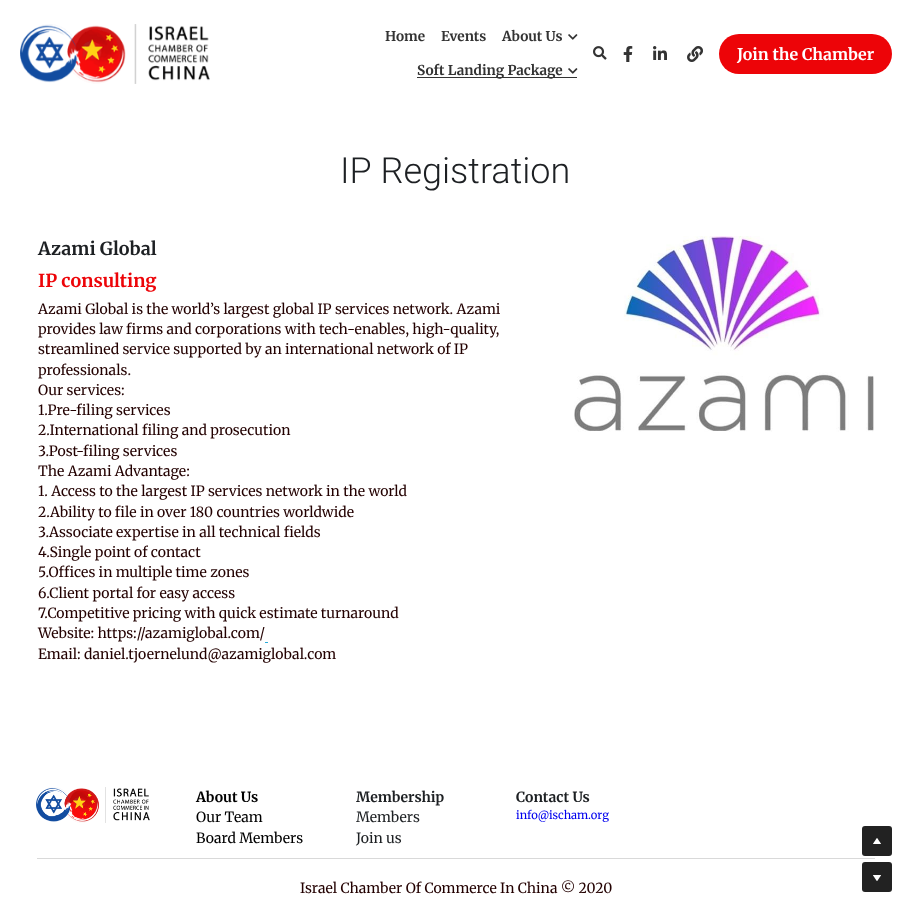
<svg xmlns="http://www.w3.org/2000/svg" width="912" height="912">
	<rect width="100%" height="100%" fill="#FFFFFF" />
	<image x="20" y="24" width="190" height="60" href="assets/img1.png" />
	<g font-family="Merriweather" font-size="13.6" font-weight="700" fill="#333333">
		<text x="385" y="41">Home</text>
		<text x="441" y="41">Events</text>
		<text x="502" y="41">About Us</text>
	</g>
	<image x="568" y="34" width="10" height="6" href="assets/img2.png" />
	<rect x="417" y="77" width="160" height="1" fill="#333333" />
	<text x="417" y="75" font-family="Merriweather" font-size="13.6" font-weight="700" fill="#333333">Soft Landing Package</text>
	<image x="568" y="68" width="10" height="6" href="assets/img2.png" />
	<image x="593" y="46" width="14" height="14" href="assets/img3.png" />
	<image x="623" y="46" width="10" height="16" href="assets/img4.png" />
	<image x="653" y="46" width="14" height="14" href="assets/img5.png" />
	<image x="687" y="46" width="16" height="16" href="assets/img6.png" />
	<rect x="719" y="34" width="173" height="40" rx="20" fill="#ED0408" />
	<text x="737" y="60" font-family="Merriweather" font-size="16" font-weight="700" fill="#FFFFFF">Join the Chamber</text>
	<text x="340" y="183" font-family="Roboto" font-size="36" font-weight="300" fill="#1D2023">IP Registration</text>
	<text x="38" y="255" font-family="Merriweather" font-size="18" font-weight="700" fill="#1D2023">Azami Global</text>
	<text x="38" y="287" font-family="Merriweather" font-size="18" font-weight="700" fill="#ED0408">IP consulting</text>
	<g font-family="Merriweather" font-size="14" fill="#230101">
		<text x="38" y="314">Azami Global is the world’s largest global IP services network. Azami</text>
		<text x="38" y="334">provides law firms and corporations with tech-enables, high-quality,</text>
		<text x="38" y="354">streamlined service supported by an international network of IP</text>
		<text x="38" y="375">professionals.</text>
		<text x="38" y="395">Our services:</text>
		<text x="38" y="415">1.Pre-filing services</text>
		<text x="38" y="435">2.International filing and prosecution</text>
		<text x="38" y="456">3.Post-filing services</text>
		<text x="38" y="476">The Azami Advantage:</text>
		<text x="38" y="496">1. Access to the largest IP services network in the world</text>
		<text x="38" y="517">2.Ability to file in over 180 countries worldwide</text>
		<text x="38" y="537">3.Associate expertise in all technical fields</text>
		<text x="38" y="557">4.Single point of contact</text>
		<text x="38" y="577">5.Offices in multiple time zones</text>
		<text x="38" y="598">6.Client portal for easy access</text>
		<text x="38" y="618">7.Competitive pricing with quick estimate turnaround</text>
		<text x="38" y="638">Website: https://azamiglobal.com/</text>
	</g>
	<rect x="265" y="642" width="3" height="1" fill="#2AABD9" />
	<text x="38" y="659" font-family="Merriweather" font-size="14" fill="#230101">Email: daniel.tjoernelund@azamiglobal.com</text>
	<image x="574" y="236" width="300" height="196" href="assets/img7.png" />
	<image x="36" y="787" width="114" height="36" href="assets/img8.png" />
	<text x="196" y="802" font-family="Merriweather" font-size="14" font-weight="700" fill="#000000">About Us</text>
	<g font-family="Merriweather" font-size="14" fill="#000000">
		<text x="196" y="822">Our Team</text>
		<text x="196" y="843">Board Members</text>
	</g>
	<text x="356" y="802" font-family="Merriweather" font-size="14" font-weight="700" fill="#1D2023">Membership</text>
	<g font-family="Merriweather" font-size="14" fill="#1D2023">
		<text x="356" y="822">Members</text>
		<text x="356" y="843">Join us</text>
	</g>
	<text x="516" y="802" font-family="Merriweather" font-size="14" font-weight="700" fill="#1D2023">Contact Us</text>
	<text x="516" y="819" font-family="Merriweather" font-size="11.25" fill="#0000EE">info@ischam.org</text>
	<rect x="37" y="858" width="838" height="1" fill="#D9D9D9" />
	<text x="300" y="893" font-family="Merriweather" font-size="14" fill="#230101">Israel Chamber Of Commerce In China © 2020</text>
	<rect x="862" y="826" width="30" height="30" rx="3" fill="#222222" />
	<image x="873" y="838" width="8" height="6" href="assets/img9.png" />
	<rect x="862" y="862" width="30" height="30" rx="3" fill="#222222" />
	<image x="873" y="875" width="8" height="6" href="assets/img10.png" />
</svg>
